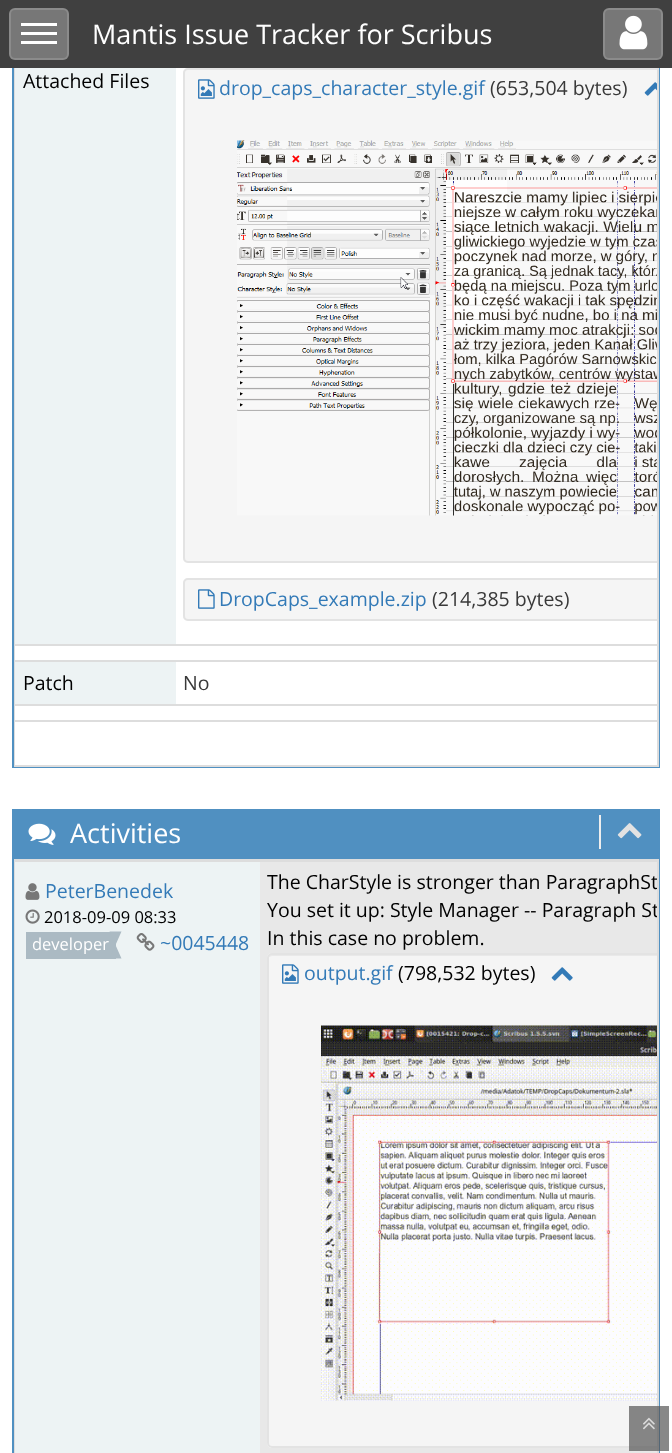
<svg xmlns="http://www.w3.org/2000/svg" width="672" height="1453">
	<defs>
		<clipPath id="clip1"><rect x="15" y="0" width="642" height="765" /></clipPath>
		<clipPath id="clip2"><rect x="15" y="860" width="642" height="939" /></clipPath>
	</defs>
	<rect width="100%" height="100%" fill="#FFFFFF" />
	<rect x="13" y="-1" width="646" height="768" fill="none" stroke="#5090C1" stroke-width="2" />
	<rect x="15" y="-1" width="643" height="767" fill="none" stroke="#DDDDDD" stroke-width="2" />
	<rect x="0" y="0" width="672" height="68" fill="#404040" />
	<rect x="9" y="8" width="60" height="52" rx="6" fill="#777777" />
	<rect x="10" y="9" width="58" height="50" rx="5" fill="none" stroke="#FFFFFF" stroke-opacity="0.15" stroke-width="2" />
	<rect x="21" y="23" width="36" height="3" fill="#FFFFFF" />
	<rect x="21" y="32" width="36" height="3" fill="#FFFFFF" />
	<rect x="21" y="41" width="36" height="3" fill="#FFFFFF" />
	<text x="92" y="44" font-family="Open Sans" font-size="27" fill="#FFFFFF">Mantis Issue Tracker for Scribus</text>
	<rect x="603" y="8" width="60" height="52" rx="6" fill="#777777" />
	<rect x="604" y="9" width="58" height="50" rx="5" fill="none" stroke="#FFFFFF" stroke-opacity="0.15" stroke-width="2" />
	<image x="619" y="15" width="29" height="35" href="assets/img1.png" />
	<rect x="15" y="68" width="1" height="697" fill="#FFFFFF" />
	<rect x="15" y="68" width="161" height="576" fill="#EDF3F4" />
	<text x="23" y="88" font-family="Open Sans" font-size="19.5" fill="#000000">Attached Files</text>
	<path d="M188 68H657V563H188C185 563 183 561 183 558V73C183 70 185 68 188 68Z" fill="#F5F5F5" />
	<g clip-path="url(#clip1)">
		<rect x="184" y="69" width="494" height="493" rx="4" fill="none" stroke="#E3E3E3" stroke-width="2" />
	</g>
	<image x="198" y="79" width="17" height="20" href="assets/img2.png" />
	<text x="219" y="95" font-family="Open Sans" font-size="19.5" fill="#337AB7">drop_caps_character_style.gif</text>
	<text x="490" y="95" font-family="Open Sans" font-size="19.5" fill="#393939">(653,504 bytes)</text>
	<image x="644" y="82" width="13" height="14" href="assets/img3.png" />
	<image x="237" y="140" width="420" height="376" href="assets/img4.png" />
	<path d="M188 578H657V621H188C185 621 183 619 183 616V583C183 580 185 578 188 578Z" fill="#F5F5F5" />
	<g clip-path="url(#clip1)">
		<rect x="184" y="579" width="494" height="41" rx="4" fill="none" stroke="#E3E3E3" stroke-width="2" />
	</g>
	<image x="198" y="589" width="17" height="20" href="assets/img5.png" />
	<text x="219" y="606" font-family="Open Sans" font-size="19.5" fill="#337AB7">DropCaps_example.zip</text>
	<text x="432" y="606" font-family="Open Sans" font-size="19.5" fill="#393939">(214,385 bytes)</text>
	<rect x="15" y="644" width="642" height="2" fill="#DDDDDD" />
	<rect x="15" y="662" width="161" height="42" fill="#EDF3F4" />
	<text x="23" y="690" font-family="Open Sans" font-size="19.5" fill="#000000">Patch</text>
	<rect x="15" y="660" width="642" height="2" fill="#DDDDDD" />
	<text x="183" y="690" font-family="Open Sans" font-size="19.5" fill="#393939">No</text>
	<rect x="15" y="704" width="642" height="2" fill="#DDDDDD" />
	<rect x="15" y="720" width="642" height="2" fill="#DDDDDD" />
	<rect x="13" y="810" width="646" height="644" fill="none" stroke="#5090C1" stroke-width="2" />
	<rect x="14" y="811" width="644" height="46" fill="#5090C1" />
	<rect x="15" y="859" width="643" height="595" fill="none" stroke="#DDDDDD" stroke-width="2" />
	<rect x="14" y="857" width="645" height="2" fill="#5090C1" />
	<image x="28" y="823" width="28" height="22" href="assets/img6.png" />
	<text x="70" y="843" font-family="Open Sans" font-size="27" fill="#FFFFFF">Activities</text>
	<rect x="599" y="815" width="2" height="34" fill="#EEEEEE" />
	<image x="617" y="823" width="25" height="16" href="assets/img7.png" />
	<rect x="15" y="862" width="245" height="591" fill="#EDF3F4" />
	<image x="25" y="883" width="15" height="17" href="assets/img8.png" />
	<text x="45" y="898" font-family="Open Sans" font-size="19.5" fill="#337AB7">PeterBenedek</text>
	<image x="25" y="909" width="15" height="15" href="assets/img9.png" />
	<text x="44" y="923" font-family="Open Sans" font-size="16.5" fill="#000000">2018-09-09 08:33</text>
	<rect x="26" y="932" width="90" height="27" fill="#ABBAC3" />
	<text x="32" y="950" font-family="Open Sans" font-size="16.5" fill="#FFFFFF">developer</text>
	<path d="M109.5 931.5H121.5L115.5 945ZM121.5 958.5H109.5L115.5 945Z" fill="#ABBAC3" />
	<image x="136" y="933" width="19" height="18" href="assets/img10.png" />
	<text x="160" y="950" font-family="Open Sans" font-size="19.5" fill="#337AB7">~0045448</text>
	<rect x="260" y="862" width="397" height="591" fill="#E8E8E8" />
	<rect x="15" y="860" width="642" height="2" fill="#DDDDDD" />
	<g clip-path="url(#clip2)">
		<g font-family="Open Sans" font-size="19.5" fill="#000000">
			<text x="267" y="889">The CharStyle is stronger than ParagraphSt</text>
			<text x="267" y="917">You set it up: Style Manager -- Paragraph St</text>
		</g>
	</g>
	<text x="267" y="945" font-family="Open Sans" font-size="19.5" fill="#000000">In this case no problem.</text>
	<path d="M272 953H657V1448H272C269 1448 267 1446 267 1443V958C267 955 269 953 272 953Z" fill="#F5F5F5" />
	<g clip-path="url(#clip2)">
		<path d="M272 956H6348C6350 956 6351 957 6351 958V957C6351 955 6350 954 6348 954H272C270 954 269 955 269 957Z" fill="#E9E9E9" />
		<rect x="268" y="954" width="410" height="493" rx="4" fill="none" stroke="#E3E3E3" stroke-width="2" />
	</g>
	<image x="282" y="964" width="17" height="20" href="assets/img2.png" />
	<text x="304" y="980" font-family="Open Sans" font-size="19.5" fill="#337AB7">output.gif</text>
	<text x="398" y="980" font-family="Open Sans" font-size="19.5" fill="#000000">(798,532 bytes)</text>
	<image x="551" y="967" width="22" height="14" href="assets/img11.png" />
	<image x="321" y="1025" width="336" height="376" href="assets/img12.png" />
	<rect x="629" y="1406" width="40" height="45" fill="#555555" fill-opacity="0.7" />
	<image x="643" y="1417" width="12" height="13" href="assets/img13.png" />
</svg>
